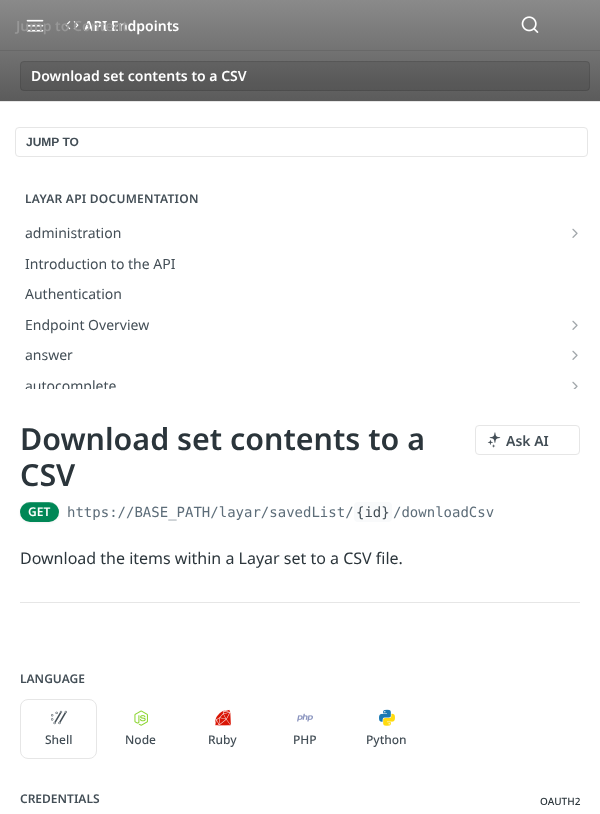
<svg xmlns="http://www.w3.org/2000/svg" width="600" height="814">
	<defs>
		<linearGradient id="g1" gradientUnits="userSpaceOnUse" x1="300" y1="0" x2="300" y2="101"><stop offset="0" stop-color="#8A8A8A" /><stop offset="1" stop-color="#5B5B5B" /></linearGradient>
		<clipPath id="clip1"><rect x="0" y="101" width="600" height="288" /></clipPath>
	</defs>
	<rect width="100%" height="100%" fill="#FFFFFF" />
	<rect x="0" y="101" width="600" height="1" fill="#E6E6E6" />
	<rect x="0" y="0" width="600" height="101" fill="url(#g1)" />
	<rect x="0" y="50" width="600" height="1" fill="#686868" />
	<image x="26" y="19" width="18" height="13" href="assets/img1.png" />
	<image x="65" y="21" width="14" height="9" href="assets/img2.png" />
	<text x="84" y="31" font-family="Noto Sans" font-size="14" font-weight="600" fill="#FFFFFF">API Endpoints</text>
	<text x="16" y="31" font-family="Noto Sans" font-size="14" font-weight="600" fill="#979797">Jump to Content</text>
	<image x="521" y="16" width="18" height="17" href="assets/img3.png" />
	<rect x="20" y="61" width="570" height="30" rx="4" fill="#000000" fill-opacity="0.1" />
	<rect x="20.5" y="61.5" width="569" height="29" rx="3.5" fill="none" stroke="#000000" stroke-opacity="0.1" />
	<text x="31" y="81" font-family="Noto Sans" font-size="14" font-weight="600" fill="#FFFFFF">Download set contents to a CSV</text>
	<rect x="15.5" y="127.5" width="572" height="29" rx="3.5" fill="none" stroke="#E6E6E6" />
	<text x="26" y="146" font-family="Liberation Sans" font-size="12" font-weight="700" fill="#434E56">JUMP TO</text>
	<text x="25" y="203" font-family="Noto Sans" font-size="12" font-weight="600" letter-spacing="0.25" fill="#434E56">LAYAR API DOCUMENTATION</text>
	<text x="25" y="238" font-family="Noto Sans" font-size="14" fill="#434E56">administration</text>
	<image x="572" y="228" width="6" height="10" href="assets/img4.png" />
	<g font-family="Noto Sans" font-size="14" fill="#434E56">
		<text x="25" y="269">Introduction to the API</text>
		<text x="25" y="299">Authentication</text>
		<text x="25" y="330">Endpoint Overview</text>
	</g>
	<image x="572" y="320" width="6" height="10" href="assets/img4.png" />
	<text x="25" y="360" font-family="Noto Sans" font-size="14" fill="#434E56">answer</text>
	<image x="572" y="350" width="6" height="10" href="assets/img4.png" />
	<g clip-path="url(#clip1)">
		<text x="25" y="391" font-family="Noto Sans" font-size="14" fill="#434E56">autocomplete</text>
	</g>
	<image x="572" y="381" width="6" height="8" href="assets/img5.png" />
	<rect x="20" y="602" width="560" height="1" fill="#E6E6E6" />
	<g font-family="Noto Sans" font-size="30.4" font-weight="600" fill="#2B353B">
		<text x="20" y="450">Download set contents to a</text>
		<text x="20" y="486">CSV</text>
	</g>
	<rect x="475.5" y="425.5" width="104" height="29" rx="3.5" fill="none" stroke="#E6E6E6" />
	<image x="487" y="432" width="14" height="16" href="assets/img6.png" />
	<text x="506" y="446" font-family="Noto Sans" font-size="14" font-weight="600" fill="#434E56">Ask AI</text>
	<rect x="20" y="503" width="39" height="20" rx="10" fill="#000000" fill-opacity="0.05" filter="blur(1px)" />
	<rect x="20" y="502" width="39" height="20" rx="10" fill="#008756" />
	<path d="M30 503H49C55 503 59 507 59 512.5C59 510.5 58.5 508 57.5 506.5C53.5 500.5 45.5 502 39.5 502C33.5 502 25.5 500.5 21.5 506.5C20.5 508 20 510.5 20 512.5C20 507 24 503 30 503Z" fill="#FFFFFF" fill-opacity="0.2" />
	<text x="28" y="516" font-family="Noto Sans" font-size="12" font-weight="600" fill="#FFFFFF">GET</text>
	<text x="67" y="517" font-family="DejaVu Sans Mono" font-size="14" fill="#5D6D79">https://BASE_PATH/layar/savedList/</text>
	<rect x="354" y="502" width="38" height="20" rx="4" fill="#F9FAFB" />
	<text x="356" y="517" font-family="DejaVu Sans Mono" font-size="14" fill="#434E56">{id}</text>
	<text x="393" y="517" font-family="DejaVu Sans Mono" font-size="14" fill="#5D6D79">/downloadCsv</text>
	<text x="20" y="564" font-family="Noto Sans" font-size="16" fill="#2B353B">Download the items within a Layar set to a CSV file.</text>
	<text x="20" y="683" font-family="Noto Sans" font-size="12" font-weight="600" fill="#434E56">LANGUAGE</text>
	<rect x="20.5" y="699.5" width="76" height="59" rx="7.5" fill="none" stroke="#E6E6E6" />
	<image x="51" y="710" width="16" height="15" href="assets/img7.png" />
	<text x="45" y="744" font-family="Noto Sans" font-size="12" font-weight="500" fill="#434E56">Shell</text>
	<image x="134" y="710" width="14" height="16" href="assets/img8.png" />
	<text x="125" y="744" font-family="Noto Sans" font-size="12" font-weight="500" fill="#434E56">Node</text>
	<image x="215" y="709" width="16" height="17" href="assets/img9.png" />
	<text x="208" y="744" font-family="Noto Sans" font-size="12" font-weight="500" fill="#434E56">Ruby</text>
	<image x="297" y="713" width="16" height="9" href="assets/img10.png" />
	<text x="293" y="744" font-family="Noto Sans" font-size="12" font-weight="500" fill="#434E56">PHP</text>
	<image x="379" y="709" width="12" height="13" href="assets/img11.png" />
	<image x="383" y="713" width="12" height="13" href="assets/img12.png" />
	<text x="366" y="744" font-family="Noto Sans" font-size="12" font-weight="500" fill="#434E56">Python</text>
	<text x="20" y="803" font-family="Noto Sans" font-size="12" font-weight="600" fill="#434E56">CREDENTIALS</text>
	<text x="540" y="805" font-family="Noto Sans" font-size="10" font-weight="500" fill="#2B353B">OAUTH2</text>
</svg>
